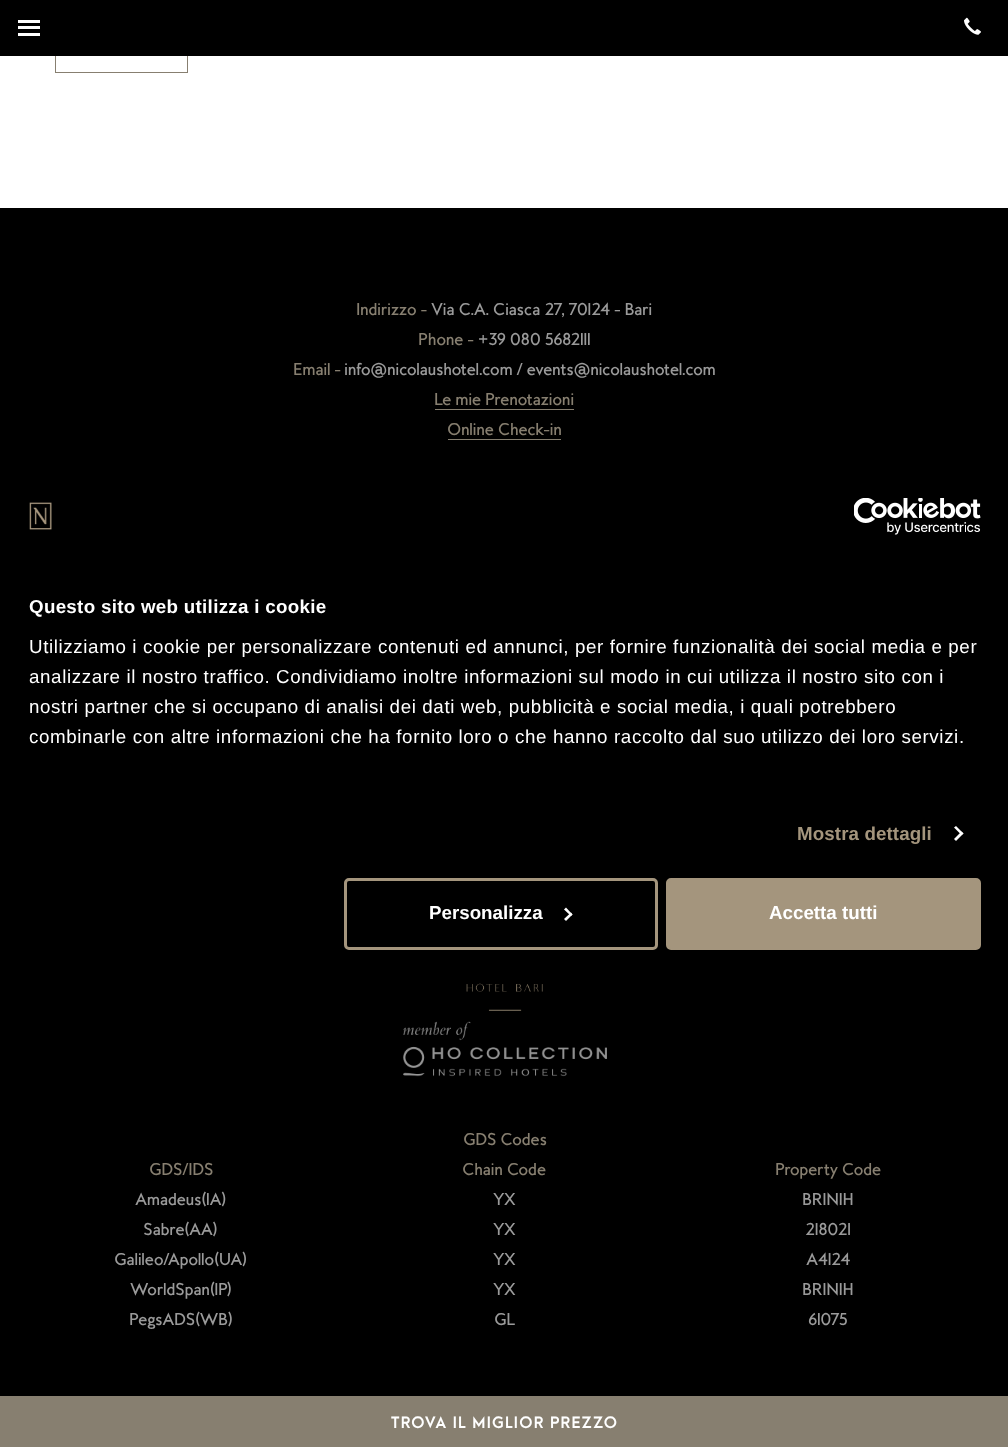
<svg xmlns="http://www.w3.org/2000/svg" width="1008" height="1447">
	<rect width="100%" height="100%" fill="#FFFFFF" />
	<rect x="55.5" y="20.5" width="132" height="52" fill="none" stroke="#877F70" />
	<rect x="0" y="0" width="1008" height="56" fill="#000000" />
	<image x="964" y="17" width="17" height="18" href="assets/img1.png" />
	<rect x="18" y="20" width="22" height="3" fill="#FFFFFF" />
	<rect x="18" y="26" width="22" height="3" fill="#FFFFFF" />
	<rect x="18" y="33" width="22" height="3" fill="#FFFFFF" />
	<rect x="0" y="208" width="1008" height="1188" fill="#000000" />
	<text x="356" y="315" font-family="'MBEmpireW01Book'" font-size="15" font-weight="700" fill="#877F70">Indirizzo -</text>
	<text x="431" y="315" font-family="'MBEmpireW01Book'" font-size="15" font-weight="700" fill="#9A9A9A">Via C.A. Ciasca 27, 70124 - Bari</text>
	<text x="418" y="345" font-family="'MBEmpireW01Book'" font-size="15" font-weight="700" fill="#877F70">Phone -</text>
	<text x="478" y="345" font-family="'MBEmpireW01Book'" font-size="15" font-weight="700" fill="#9A9A9A">+39 080 5682111</text>
	<text x="293" y="375" font-family="'MBEmpireW01Book'" font-size="15" font-weight="700" fill="#877F70">Email -</text>
	<text x="344" y="375" font-family="'MBEmpireW01Book'" font-size="15" font-weight="700" fill="#9A9A9A">info@nicolaushotel.com / events@nicolaushotel.com</text>
	<text x="434" y="405" font-family="'MBEmpireW01Book'" font-size="15" font-weight="700" fill="#877F70">Le mie Prenotazioni</text>
	<rect x="435" y="409" width="139" height="1" fill="#877F70" />
	<text x="447" y="435" font-family="'MBEmpireW01Book'" font-size="15" font-weight="700" fill="#877F70">Online Check-in</text>
	<rect x="448" y="439" width="113" height="1" fill="#877F70" />
	<image x="466" y="983" width="77" height="28" href="assets/img2.png" />
	<image x="403" y="1021" width="204" height="56" href="assets/img3.png" />
	<g font-family="'MBEmpireW01Book'" font-size="15" font-weight="700" fill="#877F70">
		<text x="463" y="1145">GDS Codes</text>
		<text x="149" y="1175">GDS/IDS</text>
	</g>
	<g font-family="'MBEmpireW01Book'" font-size="15" font-weight="700" fill="#9A9A9A">
		<text x="135" y="1205">Amadeus(1A)</text>
		<text x="143" y="1235">Sabre(AA)</text>
		<text x="114" y="1265">Galileo/Apollo(UA)</text>
		<text x="130" y="1295">WorldSpan(1P)</text>
		<text x="129" y="1325">PegsADS(WB)</text>
	</g>
	<text x="462" y="1175" font-family="'MBEmpireW01Book'" font-size="15" font-weight="700" fill="#877F70">Chain Code</text>
	<g font-family="'MBEmpireW01Book'" font-size="15" font-weight="700" fill="#9A9A9A">
		<text x="493" y="1205">YX</text>
		<text x="493" y="1235">YX</text>
		<text x="493" y="1265">YX</text>
		<text x="493" y="1295">YX</text>
		<text x="494" y="1325">GL</text>
	</g>
	<text x="775" y="1175" font-family="'MBEmpireW01Book'" font-size="15" font-weight="700" fill="#877F70">Property Code</text>
	<g font-family="'MBEmpireW01Book'" font-size="15" font-weight="700" fill="#9A9A9A">
		<text x="802" y="1205">BRINIH</text>
		<text x="805" y="1235">218021</text>
		<text x="806" y="1265">A4124</text>
		<text x="802" y="1295">BRINIH</text>
		<text x="808" y="1325">61075</text>
	</g>
	<rect x="11" y="519" width="989" height="491" rx="10" fill="#000000" fill-opacity="0.3" filter="blur(42.5px)" />
	<image x="29" y="502" width="23" height="28" href="assets/img4.png" />
	<image x="854" y="498" width="127" height="37" href="assets/img5.png" />
	<text x="29" y="613" font-family="Liberation Sans" font-size="18.75" font-weight="700" letter-spacing="0.3" fill="#FFFFFF">Questo sito web utilizza i cookie</text>
	<g font-family="Liberation Sans" font-size="18.75" letter-spacing="0.62" fill="#FFFFFF">
		<text x="29" y="653">Utilizziamo i cookie per personalizzare contenuti ed annunci, per fornire funzionalità dei social media e per</text>
		<text x="29" y="683">analizzare il nostro traffico. Condividiamo inoltre informazioni sul modo in cui utilizza il nostro sito con i</text>
		<text x="29" y="713">nostri partner che si occupano di analisi dei dati web, pubblicità e social media, i quali potrebbero</text>
		<text x="29" y="743">combinarle con altre informazioni che ha fornito loro o che hanno raccolto dal suo utilizzo dei loro servizi.</text>
	</g>
	<text x="797" y="840" font-family="Liberation Sans" font-size="18.75" font-weight="700" letter-spacing="0.1" fill="#A4957D">Mostra dettagli</text>
	<path d="M956 826L963.5 833.5L961.5 835L954 827.5Z" fill="#FFFFFF" />
	<path d="M961.5 831.5L963.5 833.5L956 841L954 839Z" fill="#FFFFFF" />
	<rect x="345.5" y="879.5" width="311" height="69" rx="3.5" fill="none" stroke="#A4957D" stroke-width="3" />
	<text x="429" y="919" font-family="Liberation Sans" font-size="18.75" font-weight="700" fill="#FFFFFF">Personalizza</text>
	<path d="M566 907.5L572.5 914.5L571 916L564 909.5Z" fill="#FFFFFF" />
	<path d="M571 912.5L572.5 914.5L566 921L564 919Z" fill="#FFFFFF" />
	<rect x="667.5" y="879.5" width="312" height="69" rx="3.5" fill="#A4957D" stroke="#A4957D" stroke-width="3" />
	<text x="769" y="919" font-family="Liberation Sans" font-size="18.75" font-weight="700" fill="#FFFFFF">Accetta tutti</text>
	<rect x="0" y="1396" width="1008" height="51" fill="#877F70" />
	<text x="391" y="1428" font-family="'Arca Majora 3'" font-size="15" font-weight="700" letter-spacing="1.25" fill="#FFFFFF">TROVA IL MIGLIOR PREZZO</text>
</svg>
